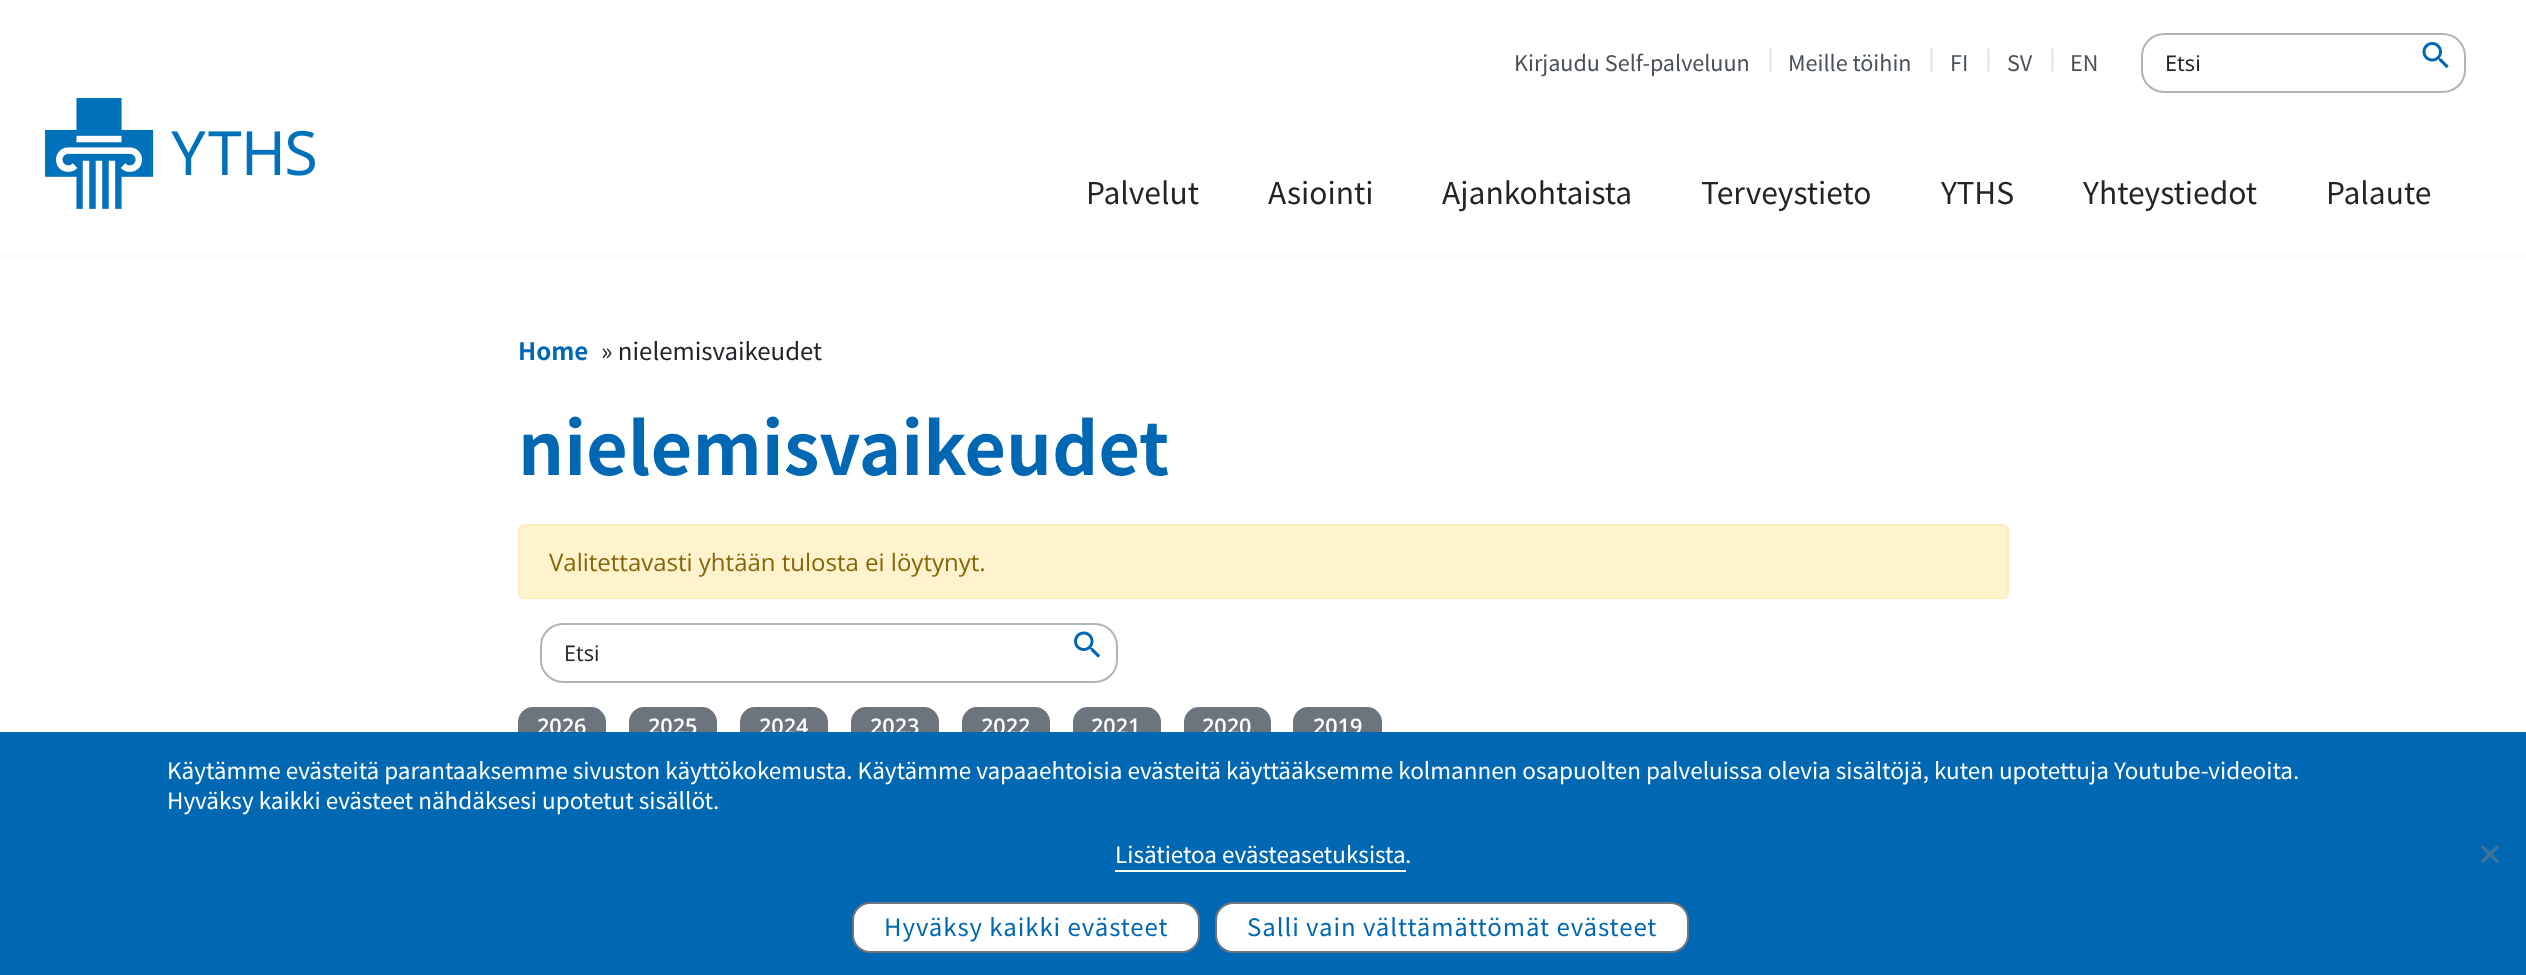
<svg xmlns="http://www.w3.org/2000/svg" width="2526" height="975">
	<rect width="100%" height="100%" fill="#FFFFFF" />
	<rect x="0" y="255" width="2526" height="2" fill="#F8F9FA" />
	<image x="45" y="98" width="270" height="111" href="assets/img1.png" />
	<text x="1514" y="71" font-family="Noto Sans SC" font-size="21.6" fill="#495057">Kirjaudu Self-palveluun</text>
	<text x="1764" y="68" font-family="Noto Sans" font-size="24" fill="#DEE2E6">|</text>
	<text x="1788" y="71" font-family="Noto Sans SC" font-size="21.6" fill="#495057">Meille töihin</text>
	<text x="1925" y="68" font-family="Noto Sans" font-size="24" fill="#DEE2E6">|</text>
	<text x="1950" y="71" font-family="Noto Sans SC" font-size="21.6" fill="#495057">FI</text>
	<text x="1982" y="68" font-family="Noto Sans" font-size="24" fill="#DEE2E6">|</text>
	<text x="2007" y="71" font-family="Noto Sans SC" font-size="21.6" fill="#495057">SV</text>
	<text x="2046" y="68" font-family="Noto Sans" font-size="24" fill="#DEE2E6">|</text>
	<text x="2070" y="71" font-family="Noto Sans SC" font-size="21.6" fill="#495057">EN</text>
	<rect x="2142" y="34" width="323" height="58" rx="22" fill="none" stroke="#ADB5BD" stroke-width="2" />
	<text x="2165" y="71" font-family="Noto Sans" font-size="21.6" fill="#212529">Etsi</text>
	<image x="2422" y="42" width="27" height="27" href="assets/img2.png" />
	<g font-family="Noto Sans SC" font-size="30" fill="#212529">
		<text x="1086" y="204">Palvelut</text>
		<text x="1268" y="204">Asiointi</text>
		<text x="1442" y="204">Ajankohtaista</text>
		<text x="1701" y="204">Terveystieto</text>
		<text x="1941" y="204">YTHS</text>
		<text x="2083" y="204">Yhteystiedot</text>
		<text x="2326" y="204">Palaute</text>
	</g>
	<text x="518" y="360" font-family="Noto Sans SC" font-size="24" font-weight="700" fill="#0068B3">Home</text>
	<text x="601" y="360" font-family="Noto Sans SC" font-size="24" fill="#212529">» nielemisvaikeudet</text>
	<text x="518" y="475" font-family="Noto Sans SC" font-size="72" font-weight="700" fill="#0068B3">nielemisvaikeudet</text>
	<rect x="519" y="525" width="1489" height="73" rx="5" fill="#FFF3CD" stroke="#FFEEBA" stroke-width="2" />
	<text x="549" y="571" font-family="Open Sans" font-size="24" fill="#856404">Valitettavasti yhtään tulosta ei löytynyt.</text>
	<rect x="541" y="624" width="576" height="58" rx="22" fill="none" stroke="#ADB5BD" stroke-width="2" />
	<text x="564" y="661" font-family="Open Sans" font-size="21.6" fill="#212529">Etsi</text>
	<image x="1074" y="631" width="27" height="27" href="assets/img3.png" />
	<rect x="518" y="707" width="88" height="39" rx="15" fill="#6C757D" />
	<text x="537" y="734" font-family="Open Sans" font-size="21.6" font-weight="600" fill="#FFFFFF">2026</text>
	<rect x="629" y="707" width="88" height="39" rx="15" fill="#6C757D" />
	<text x="648" y="734" font-family="Open Sans" font-size="21.6" font-weight="600" fill="#FFFFFF">2025</text>
	<rect x="740" y="707" width="88" height="39" rx="15" fill="#6C757D" />
	<text x="759" y="734" font-family="Open Sans" font-size="21.6" font-weight="600" fill="#FFFFFF">2024</text>
	<rect x="851" y="707" width="88" height="39" rx="15" fill="#6C757D" />
	<text x="870" y="734" font-family="Open Sans" font-size="21.6" font-weight="600" fill="#FFFFFF">2023</text>
	<rect x="962" y="707" width="88" height="39" rx="15" fill="#6C757D" />
	<text x="981" y="734" font-family="Open Sans" font-size="21.6" font-weight="600" fill="#FFFFFF">2022</text>
	<rect x="1073" y="707" width="88" height="39" rx="15" fill="#6C757D" />
	<text x="1091" y="734" font-family="Open Sans" font-size="21.6" font-weight="600" fill="#FFFFFF">2021</text>
	<rect x="1184" y="707" width="87" height="39" rx="15" fill="#6C757D" />
	<text x="1202" y="734" font-family="Open Sans" font-size="21.6" font-weight="600" fill="#FFFFFF">2020</text>
	<rect x="1293" y="707" width="89" height="39" rx="15" fill="#6C757D" />
	<text x="1313" y="734" font-family="Open Sans" font-size="21.6" font-weight="600" fill="#FFFFFF">2019</text>
	<rect x="0" y="732" width="2526" height="243" fill="#0068B3" />
	<g font-family="Noto Sans SC" font-size="22.5" fill="#FFFFFF">
		<text x="167" y="779">Käytämme evästeitä parantaaksemme sivuston käyttökokemusta. Käytämme vapaaehtoisia evästeitä käyttääksemme kolmannen osapuolten palveluissa olevia sisältöjä, kuten upotettuja Youtube-videoita.</text>
		<text x="167" y="809">Hyväksy kaikki evästeet nähdäksesi upotetut sisällöt.</text>
		<text x="1115" y="863">Lisätietoa evästeasetuksista</text>
	</g>
	<rect x="1115" y="870" width="291" height="2" fill="#FFFFFF" />
	<text x="1405" y="863" font-family="Noto Sans SC" font-size="22.5" fill="#FFFFFF">.</text>
	<path d="M2497 845L2499 847.5L2483 863.5L2481 861Z" fill="#40749A" />
	<path d="M2481 847.5L2483 845L2499 861L2497 863.5Z" fill="#40749A" />
	<rect x="853" y="903" width="346" height="49" rx="17" fill="#FFFFFF" stroke="#6C757D" stroke-width="2" />
	<text x="884" y="936" font-family="Noto Sans SC" font-size="24" letter-spacing="0.95" fill="#0068B3">Hyväksy kaikki evästeet</text>
	<rect x="1216" y="903" width="472" height="49" rx="17" fill="#FFFFFF" stroke="#6C757D" stroke-width="2" />
	<text x="1247" y="936" font-family="Noto Sans SC" font-size="24" letter-spacing="0.95" fill="#0068B3">Salli vain välttämättömät evästeet</text>
</svg>
